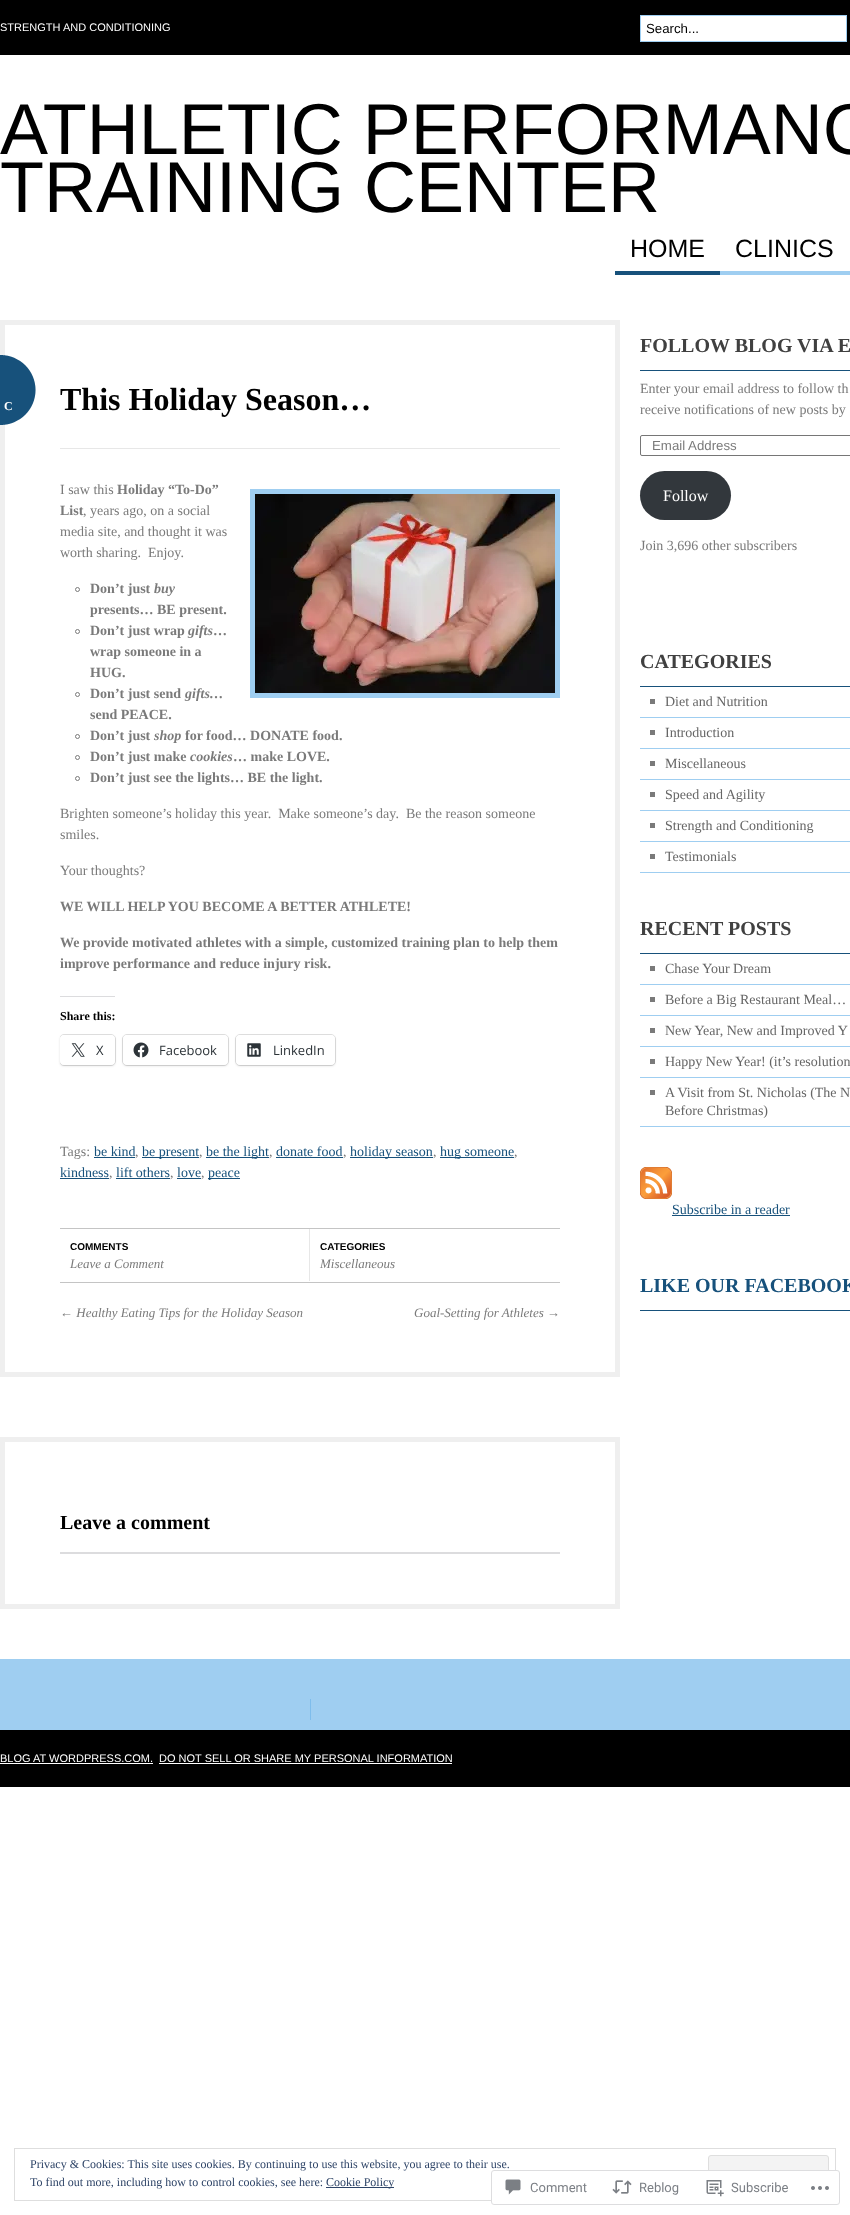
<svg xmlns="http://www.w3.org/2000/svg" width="850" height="2215">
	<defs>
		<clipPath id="clip1"><rect x="60" y="479" width="500" height="719" /></clipPath>
	</defs>
	<rect width="100%" height="100%" fill="#FFFFFF" />
	<rect x="0" y="0" width="850" height="55" fill="#000000" />
	<text x="0" y="31" font-family="Liberation Sans" font-size="11" fill="#FFFFFF">STRENGTH AND CONDITIONING</text>
	<rect x="640.5" y="15.5" width="206" height="26" fill="#FFFFFF" stroke="#9FCEF1" />
	<text x="646" y="33" font-family="Liberation Sans" font-size="13.25" fill="#000000">Search...</text>
	<g font-family="Liberation Sans" font-size="72" fill="#000000">
		<text x="0" y="154">ATHLETIC PERFORMANC</text>
		<text x="0" y="212">TRAINING CENTER</text>
	</g>
	<rect x="615" y="271" width="105" height="4" fill="#17517B" />
	<text x="630" y="257" font-family="Liberation Sans" font-size="25" fill="#000000">HOME</text>
	<rect x="720" y="271" width="130" height="4" fill="#9FCEF1" />
	<text x="735" y="257" font-family="Liberation Sans" font-size="25" fill="#000000">CLINICS</text>
	<rect x="2.5" y="322.5" width="615" height="1052" fill="none" stroke="#EFEFEF" stroke-width="5" />
	<image x="0" y="355" width="36" height="70" href="assets/img1.png" />
	<text x="4" y="410" font-family="Liberation Serif" font-size="12" font-weight="700" fill="#FFFFFF">C</text>
	<rect x="60" y="448" width="500" height="1" fill="#E7E7E7" />
	<text x="60" y="410" font-family="Liberation Serif" font-size="32" font-weight="700" fill="#000000">This Holiday Season…</text>
	<text x="60" y="494" font-family="Liberation Serif" font-size="14" fill="#7A7A7A">I saw this</text>
	<text x="117" y="494" font-family="Liberation Serif" font-size="14" font-weight="700" fill="#7A7A7A">Holiday “To-Do”</text>
	<rect x="252.5" y="491.5" width="305" height="204" fill="none" stroke="#9FCEF1" stroke-width="5" />
	<image x="255" y="494" width="300" height="199" href="assets/img2.png" />
	<text x="60" y="515" font-family="Liberation Serif" font-size="14" font-weight="700" fill="#7A7A7A">List</text>
	<g font-family="Liberation Serif" font-size="14" fill="#7A7A7A">
		<text x="83" y="515">, years ago, on a social</text>
		<text x="60" y="536">media site, and thought it was</text>
		<text x="60" y="557" xml:space="preserve">worth sharing.  Enjoy.</text>
	</g>
	<circle cx="77.5" cy="589.5" r="2" fill="none" stroke="#7A7A7A" />
	<text x="90" y="593" font-family="Liberation Serif" font-size="14" font-weight="700" fill="#7A7A7A">Don’t just</text>
	<text x="154" y="593" font-family="Liberation Serif" font-size="14" font-weight="700" font-style="italic" fill="#7A7A7A">buy</text>
	<text x="90" y="614" font-family="Liberation Serif" font-size="14" font-weight="700" fill="#7A7A7A">presents… BE present.</text>
	<circle cx="77.5" cy="631.5" r="2" fill="none" stroke="#7A7A7A" />
	<text x="90" y="635" font-family="Liberation Serif" font-size="14" font-weight="700" fill="#7A7A7A">Don’t just wrap</text>
	<text x="188" y="635" font-family="Liberation Serif" font-size="14" font-weight="700" font-style="italic" fill="#7A7A7A">gifts</text>
	<g font-family="Liberation Serif" font-size="14" font-weight="700" fill="#7A7A7A">
		<text x="213" y="635">…</text>
		<text x="90" y="656">wrap someone in a</text>
		<text x="90" y="677">HUG.</text>
	</g>
	<circle cx="77.5" cy="694.5" r="2" fill="none" stroke="#7A7A7A" />
	<text x="90" y="698" font-family="Liberation Serif" font-size="14" font-weight="700" fill="#7A7A7A">Don’t just send</text>
	<text x="185" y="698" font-family="Liberation Serif" font-size="14" font-weight="700" font-style="italic" fill="#7A7A7A">gifts</text>
	<g font-family="Liberation Serif" font-size="14" font-weight="700" fill="#7A7A7A">
		<text x="209" y="698">…</text>
		<text x="90" y="719">send PEACE.</text>
	</g>
	<circle cx="77.5" cy="736.5" r="2" fill="none" stroke="#7A7A7A" />
	<text x="90" y="740" font-family="Liberation Serif" font-size="14" font-weight="700" fill="#7A7A7A">Don’t just</text>
	<text x="154" y="740" font-family="Liberation Serif" font-size="14" font-weight="700" font-style="italic" fill="#7A7A7A">shop</text>
	<text x="185" y="740" font-family="Liberation Serif" font-size="14" font-weight="700" fill="#7A7A7A">for food… DONATE food.</text>
	<circle cx="77.5" cy="757.5" r="2" fill="none" stroke="#7A7A7A" />
	<text x="90" y="761" font-family="Liberation Serif" font-size="14" font-weight="700" fill="#7A7A7A">Don’t just make</text>
	<text x="190" y="761" font-family="Liberation Serif" font-size="14" font-weight="700" font-style="italic" fill="#7A7A7A">cookies</text>
	<text x="233" y="761" font-family="Liberation Serif" font-size="14" font-weight="700" fill="#7A7A7A">… make LOVE.</text>
	<circle cx="77.5" cy="778.5" r="2" fill="none" stroke="#7A7A7A" />
	<text x="90" y="782" font-family="Liberation Serif" font-size="14" font-weight="700" fill="#7A7A7A">Don’t just see the lights… BE the light.</text>
	<g font-family="Liberation Serif" font-size="14" fill="#7A7A7A">
		<text x="60" y="818" xml:space="preserve">Brighten someone’s holiday this year.  Make someone’s day.  Be the reason someone</text>
		<text x="60" y="839">smiles.</text>
		<text x="60" y="875">Your thoughts?</text>
	</g>
	<g font-family="Liberation Serif" font-size="14" font-weight="700" fill="#7A7A7A">
		<text x="60" y="911">WE WILL HELP YOU BECOME A BETTER ATHLETE!</text>
		<text x="60" y="947">We provide motivated athletes with a simple, customized training plan to help them</text>
		<text x="60" y="968">improve performance and reduce injury risk.</text>
	</g>
	<rect x="60" y="996" width="55" height="1" fill="#DCDCDE" />
	<text x="60" y="1020" font-family="Liberation Serif" font-size="12" font-weight="700" fill="#000000">Share this:</text>
	<g clip-path="url(#clip1)">
		<rect x="59.5" y="1034.5" width="56" height="31" rx="4.5" fill="none" stroke="#E0E0E0" />
	</g>
	<rect x="60" y="1036" width="55" height="30" rx="4" fill="#000000" fill-opacity="0.12" filter="blur(1px)" />
	<rect x="60" y="1035" width="55" height="30" rx="4" fill="#FFFFFF" />
	<image x="71" y="1043" width="14" height="14" href="assets/img3.png" />
	<text x="96" y="1055" font-family="Open Sans" font-size="13" fill="#2C3338">X</text>
	<rect x="122.5" y="1034.5" width="106" height="31" rx="4.5" fill="none" stroke="#E0E0E0" />
	<rect x="123" y="1036" width="105" height="30" rx="4" fill="#000000" fill-opacity="0.12" filter="blur(1px)" />
	<rect x="123" y="1035" width="105" height="30" rx="4" fill="#FFFFFF" />
	<image x="133" y="1042" width="16" height="16" href="assets/img4.png" />
	<text x="159" y="1055" font-family="Open Sans" font-size="13" fill="#2C3338">Facebook</text>
	<rect x="235.5" y="1034.5" width="100" height="31" rx="4.5" fill="none" stroke="#E0E0E0" />
	<rect x="236" y="1036" width="99" height="30" rx="4" fill="#000000" fill-opacity="0.12" filter="blur(1px)" />
	<rect x="236" y="1035" width="99" height="30" rx="4" fill="#FFFFFF" />
	<image x="247" y="1043" width="14" height="14" href="assets/img5.png" />
	<text x="273" y="1055" font-family="Open Sans" font-size="13" fill="#2C3338">LinkedIn</text>
	<text x="60" y="1156" font-family="Liberation Serif" font-size="14" fill="#7A7A7A">Tags:</text>
	<text x="94" y="1156" font-family="Liberation Serif" font-size="14" fill="#17517B">be kind</text>
	<rect x="94" y="1157" width="41" height="1" fill="#17517B" />
	<text x="135" y="1156" font-family="Liberation Serif" font-size="14" fill="#7A7A7A">,</text>
	<rect x="142" y="1157" width="57" height="1" fill="#17517B" />
	<text x="142" y="1156" font-family="Liberation Serif" font-size="14" fill="#17517B">be present</text>
	<text x="199" y="1156" font-family="Liberation Serif" font-size="14" fill="#7A7A7A">,</text>
	<rect x="206" y="1157" width="63" height="1" fill="#17517B" />
	<text x="206" y="1156" font-family="Liberation Serif" font-size="14" fill="#17517B">be the light</text>
	<text x="269" y="1156" font-family="Liberation Serif" font-size="14" fill="#7A7A7A">,</text>
	<text x="276" y="1156" font-family="Liberation Serif" font-size="14" fill="#17517B">donate food</text>
	<rect x="276" y="1157" width="67" height="1" fill="#17517B" />
	<text x="343" y="1156" font-family="Liberation Serif" font-size="14" fill="#7A7A7A">,</text>
	<rect x="350" y="1157" width="83" height="1" fill="#17517B" />
	<text x="350" y="1156" font-family="Liberation Serif" font-size="14" fill="#17517B">holiday season</text>
	<text x="433" y="1156" font-family="Liberation Serif" font-size="14" fill="#7A7A7A">,</text>
	<rect x="440" y="1157" width="74" height="1" fill="#17517B" />
	<text x="440" y="1156" font-family="Liberation Serif" font-size="14" fill="#17517B">hug someone</text>
	<text x="514" y="1156" font-family="Liberation Serif" font-size="14" fill="#7A7A7A">,</text>
	<text x="60" y="1177" font-family="Liberation Serif" font-size="14" fill="#17517B">kindness</text>
	<rect x="60" y="1178" width="49" height="1" fill="#17517B" />
	<text x="109" y="1177" font-family="Liberation Serif" font-size="14" fill="#7A7A7A">,</text>
	<text x="116" y="1177" font-family="Liberation Serif" font-size="14" fill="#17517B">lift others</text>
	<rect x="116" y="1178" width="54" height="1" fill="#17517B" />
	<text x="170" y="1177" font-family="Liberation Serif" font-size="14" fill="#7A7A7A">,</text>
	<text x="177" y="1177" font-family="Liberation Serif" font-size="14" fill="#17517B">love</text>
	<rect x="177" y="1178" width="24" height="1" fill="#17517B" />
	<text x="201" y="1177" font-family="Liberation Serif" font-size="14" fill="#7A7A7A">,</text>
	<rect x="208" y="1178" width="32" height="1" fill="#17517B" />
	<text x="208" y="1177" font-family="Liberation Serif" font-size="14" fill="#17517B">peace</text>
	<rect x="60" y="1228" width="500" height="1" fill="#C4C4C4" />
	<rect x="60" y="1282" width="500" height="1" fill="#C4C4C4" />
	<text x="70" y="1250" font-family="Liberation Sans" font-size="10" font-weight="700" fill="#000000">COMMENTS</text>
	<text x="70" y="1268" font-family="Liberation Serif" font-size="13" font-style="italic" fill="#7A7A7A">Leave a Comment</text>
	<rect x="309" y="1229" width="1" height="52" fill="#E7E7E7" />
	<text x="320" y="1250" font-family="Liberation Sans" font-size="10" font-weight="700" fill="#000000">CATEGORIES</text>
	<g font-family="Liberation Serif" font-size="13" font-style="italic" fill="#7A7A7A">
		<text x="320" y="1268">Miscellaneous</text>
		<text x="60" y="1317">← Healthy Eating Tips for the Holiday Season</text>
		<text x="414" y="1317">Goal-Setting for Athletes →</text>
	</g>
	<rect x="2.5" y="1439.5" width="615" height="167" fill="none" stroke="#EFEFEF" stroke-width="5" />
	<text x="60" y="1529" font-family="Liberation Serif" font-size="20" font-weight="700" fill="#000000">Leave a comment</text>
	<rect x="60" y="1552" width="500" height="2" fill="#DCDCDE" />
	<rect x="640" y="370" width="210" height="1" fill="#17517B" />
	<text x="640" y="352" font-family="Liberation Serif" font-size="20" font-weight="700" fill="#404040">FOLLOW BLOG VIA E</text>
	<g font-family="Liberation Serif" font-size="14" fill="#7A7A7A">
		<text x="640" y="393">Enter your email address to follow th</text>
		<text x="640" y="414">receive notifications of new posts by</text>
	</g>
	<rect x="640.5" y="435.5" width="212" height="20" rx="1.5" fill="none" stroke="#767676" />
	<text x="652" y="450" font-family="Liberation Sans" font-size="13.25" fill="#7A7A7A">Email Address</text>
	<rect x="640" y="471" width="91" height="49" rx="24.5" fill="#32373C" />
	<text x="663" y="501" font-family="Liberation Serif" font-size="16" fill="#FFFFFF">Follow</text>
	<text x="640" y="550" font-family="Liberation Serif" font-size="14" fill="#7A7A7A">Join 3,696 other subscribers</text>
	<rect x="640" y="686" width="210" height="1" fill="#17517B" />
	<text x="640" y="668" font-family="Liberation Serif" font-size="20" font-weight="700" fill="#404040">CATEGORIES</text>
	<rect x="650" y="699" width="5" height="5" fill="#7A7A7A" />
	<rect x="640" y="717" width="210" height="1" fill="#9FCEF1" />
	<text x="665" y="706" font-family="Liberation Serif" font-size="14" fill="#666666">Diet and Nutrition</text>
	<rect x="650" y="730" width="5" height="5" fill="#7A7A7A" />
	<rect x="640" y="748" width="210" height="1" fill="#9FCEF1" />
	<text x="665" y="737" font-family="Liberation Serif" font-size="14" fill="#666666">Introduction</text>
	<rect x="650" y="761" width="5" height="5" fill="#7A7A7A" />
	<rect x="640" y="779" width="210" height="1" fill="#9FCEF1" />
	<text x="665" y="768" font-family="Liberation Serif" font-size="14" fill="#666666">Miscellaneous</text>
	<rect x="650" y="792" width="5" height="5" fill="#7A7A7A" />
	<rect x="640" y="810" width="210" height="1" fill="#9FCEF1" />
	<text x="665" y="799" font-family="Liberation Serif" font-size="14" fill="#666666">Speed and Agility</text>
	<rect x="650" y="823" width="5" height="5" fill="#7A7A7A" />
	<rect x="640" y="841" width="210" height="1" fill="#9FCEF1" />
	<text x="665" y="830" font-family="Liberation Serif" font-size="14" fill="#666666">Strength and Conditioning</text>
	<rect x="650" y="854" width="5" height="5" fill="#7A7A7A" />
	<rect x="640" y="872" width="210" height="1" fill="#9FCEF1" />
	<text x="665" y="861" font-family="Liberation Serif" font-size="14" fill="#666666">Testimonials</text>
	<rect x="640" y="953" width="210" height="1" fill="#17517B" />
	<text x="640" y="935" font-family="Liberation Serif" font-size="20" font-weight="700" fill="#404040">RECENT POSTS</text>
	<rect x="650" y="966" width="5" height="5" fill="#7A7A7A" />
	<rect x="640" y="984" width="210" height="1" fill="#9FCEF1" />
	<text x="665" y="973" font-family="Liberation Serif" font-size="14" fill="#666666">Chase Your Dream</text>
	<rect x="650" y="997" width="5" height="5" fill="#7A7A7A" />
	<rect x="640" y="1015" width="210" height="1" fill="#9FCEF1" />
	<text x="665" y="1004" font-family="Liberation Serif" font-size="14" fill="#666666">Before a Big Restaurant Meal…</text>
	<rect x="650" y="1028" width="5" height="5" fill="#7A7A7A" />
	<rect x="640" y="1046" width="210" height="1" fill="#9FCEF1" />
	<text x="665" y="1035" font-family="Liberation Serif" font-size="14" fill="#666666">New Year, New and Improved Y</text>
	<rect x="650" y="1059" width="5" height="5" fill="#7A7A7A" />
	<rect x="640" y="1077" width="210" height="1" fill="#9FCEF1" />
	<text x="665" y="1066" font-family="Liberation Serif" font-size="14" fill="#666666">Happy New Year! (it’s resolution</text>
	<rect x="650" y="1090" width="5" height="5" fill="#7A7A7A" />
	<rect x="640" y="1126" width="210" height="1" fill="#9FCEF1" />
	<g font-family="Liberation Serif" font-size="14" fill="#666666">
		<text x="665" y="1097">A Visit from St. Nicholas (The N</text>
		<text x="665" y="1115">Before Christmas)</text>
	</g>
	<image x="640" y="1167" width="32" height="32" href="assets/img6.png" />
	<text x="672" y="1214" font-family="Liberation Serif" font-size="14" fill="#17517B">Subscribe in a reader</text>
	<rect x="672" y="1215" width="118" height="1" fill="#17517B" />
	<rect x="640" y="1310" width="210" height="1" fill="#17517B" />
	<text x="640" y="1292" font-family="Liberation Serif" font-size="20" font-weight="700" fill="#17517B">LIKE OUR FACEBOOK</text>
	<rect x="0" y="1659" width="850" height="71" fill="#9FCEF1" />
	<rect x="310" y="1699" width="1" height="21" fill="#7EBDEC" />
	<rect x="0" y="1730" width="850" height="57" fill="#000000" />
	<text x="0" y="1762" font-family="Liberation Sans" font-size="11" fill="#FFFFFF">BLOG AT WORDPRESS.COM.</text>
	<rect x="0" y="1763" width="153" height="1" fill="#FFFFFF" />
	<text x="159" y="1762" font-family="Liberation Sans" font-size="11" fill="#FFFFFF">DO NOT SELL OR SHARE MY PERSONAL INFORMATION</text>
	<rect x="159" y="1763" width="293" height="1" fill="#FFFFFF" />
	<rect x="14.5" y="2148.5" width="821" height="52" fill="none" stroke="#DEDEDE" />
	<text x="30" y="2168" font-family="Liberation Serif" font-size="12" fill="#2E4467">Privacy &amp; Cookies: This site uses cookies. By continuing to use this website, you agree to their use.</text>
	<rect x="708.5" y="2155.5" width="120" height="38" rx="2.5" fill="#F3F3F3" stroke="#DEDEDE" />
	<text x="30" y="2186" font-family="Liberation Serif" font-size="12" fill="#2E4467">To find out more, including how to control cookies, see here:</text>
	<rect x="326" y="2187" width="68" height="1" fill="#2E4467" />
	<text x="326" y="2186" font-family="Liberation Serif" font-size="12" fill="#2E4467">Cookie Policy</text>
	<rect x="491" y="2170" width="349" height="35" rx="3" fill="#FFFFFF" fill-opacity="0.98" />
	<rect x="491.5" y="2170.5" width="348" height="34" rx="2.5" fill="none" stroke="#DCDCDE" stroke-opacity="0.98" />
	<image x="505" y="2179" width="16" height="16" href="assets/img7.png" />
	<text x="530" y="2192" font-family="Roboto" font-size="13" fill="#7B7F85">Comment</text>
	<image x="612" y="2180" width="20" height="14" href="assets/img8.png" />
	<text x="639" y="2192" font-family="Roboto" font-size="13" fill="#7B7F85">Reblog</text>
	<image x="706" y="2180" width="18" height="17" href="assets/img9.png" />
	<text x="731" y="2192" font-family="Roboto" font-size="13" fill="#7B7F85">Subscribe</text>
	<image x="811" y="2186" width="18" height="4" href="assets/img10.png" />
</svg>
